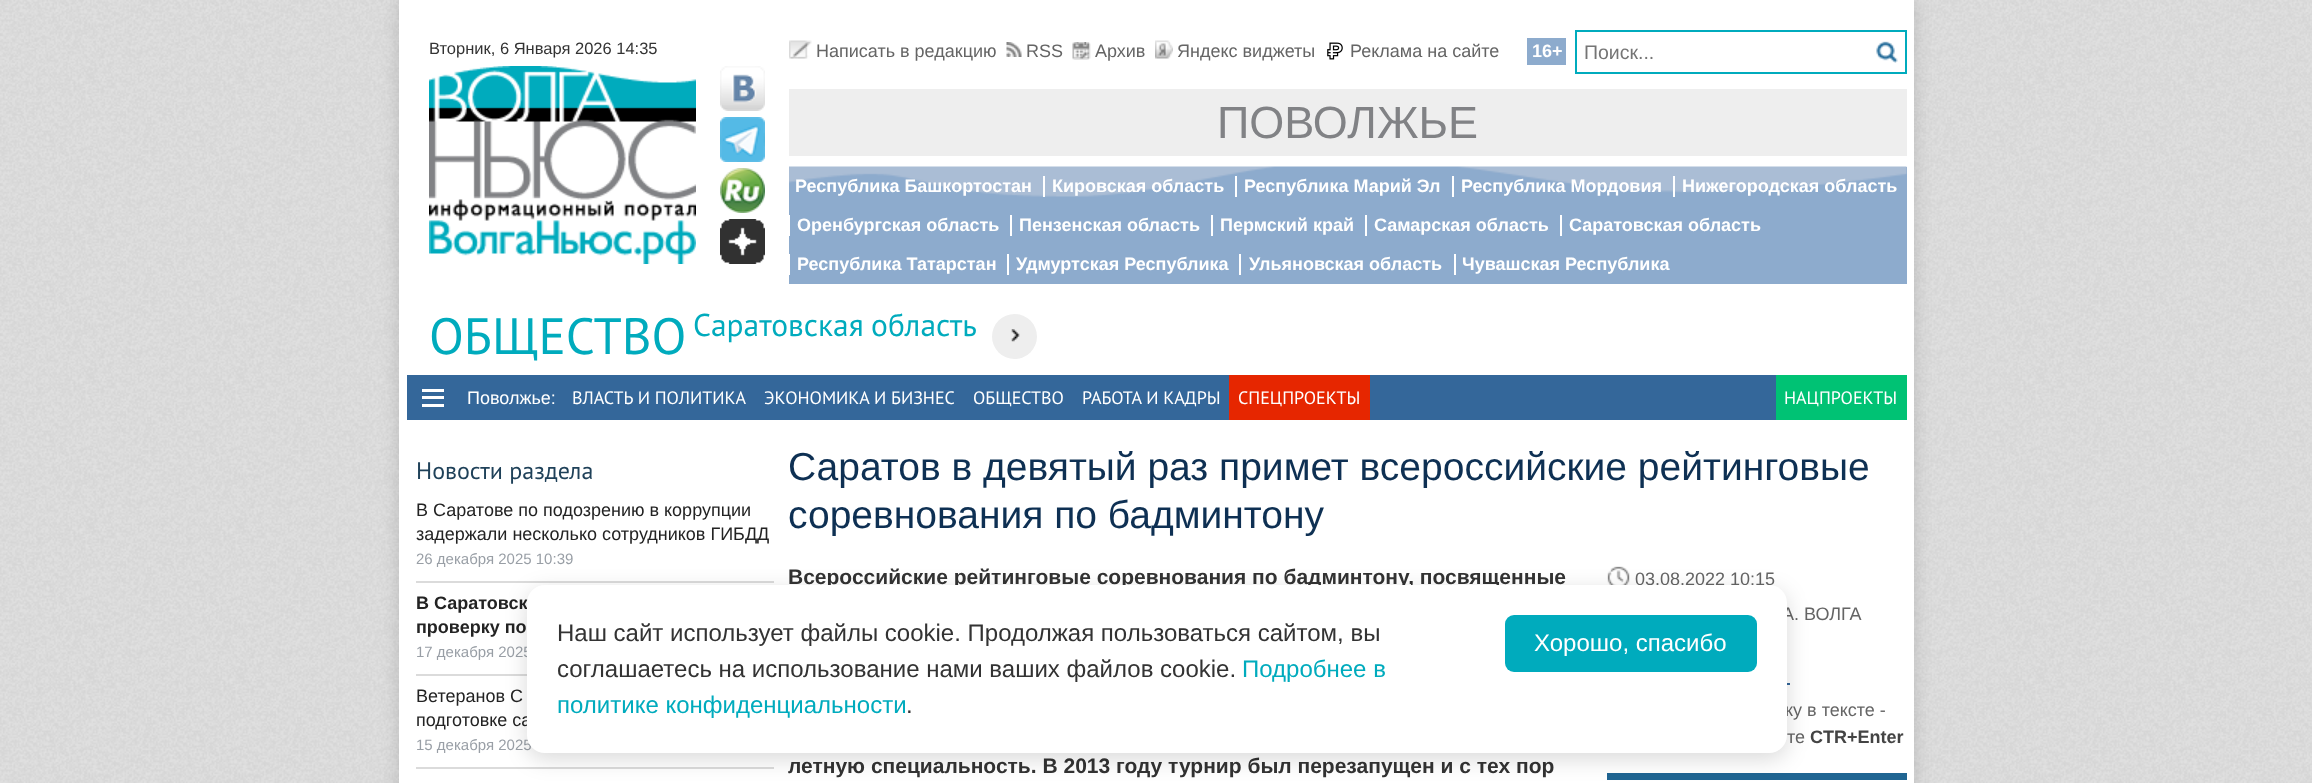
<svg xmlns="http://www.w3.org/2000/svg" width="2312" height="783">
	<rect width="100%" height="100%" fill="#FFFFFF" />
	<image x="0" y="0" width="2312" height="783" href="assets/img1.png" />
	<rect x="399" y="0" width="1515" height="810" fill="#000000" fill-opacity="0.15" filter="blur(9px)" />
	<rect x="399" y="0" width="1515" height="783" fill="#FFFFFF" />
	<text x="429" y="54" font-family="Liberation Sans" font-size="16.5" fill="#333333">Вторник, 6 Января 2026 14:35</text>
	<image x="429" y="66" width="267" height="198" href="assets/img2.png" />
	<image x="720" y="66" width="45" height="45" href="assets/img3.png" />
	<image x="720" y="117" width="45" height="45" href="assets/img4.png" />
	<image x="720" y="168" width="45" height="45" href="assets/img5.png" />
	<image x="720" y="219" width="45" height="45" href="assets/img6.png" />
	<image x="789" y="40" width="23" height="19" href="assets/img7.png" />
	<text x="816" y="57" font-family="Liberation Sans" font-size="18" fill="#656565">Написать в редакцию</text>
	<image x="1006" y="42" width="16" height="15" href="assets/img8.png" />
	<text x="1026" y="57" font-family="Liberation Sans" font-size="18" fill="#656565">RSS</text>
	<image x="1072" y="42" width="19" height="18" href="assets/img9.png" />
	<text x="1095" y="57" font-family="Liberation Sans" font-size="18" fill="#656565">Архив</text>
	<image x="1155" y="40" width="18" height="19" href="assets/img10.png" />
	<text x="1177" y="57" font-family="Liberation Sans" font-size="18" fill="#656565">Яндекс виджеты</text>
	<image x="1327" y="42" width="16" height="18" href="assets/img11.png" />
	<text x="1350" y="57" font-family="Liberation Sans" font-size="18" fill="#656565">Реклама на сайте</text>
	<rect x="1527" y="38" width="39" height="27" fill="#8DABCD" />
	<text x="1532" y="57" font-family="Liberation Sans" font-size="18" font-weight="700" fill="#FFFFFF">16+</text>
	<rect x="1576" y="31" width="330" height="42" fill="none" stroke="#00ABBD" stroke-width="2" />
	<text x="1584" y="59" font-family="Liberation Sans" font-size="19.5" fill="#757575">Поиск...</text>
	<image x="1876" y="41" width="22" height="22" href="assets/img12.png" />
	<rect x="789" y="89" width="1118" height="67" fill="#EEEEEE" />
	<text x="1217" y="138" font-family="Liberation Sans" font-size="45" fill="#818285">ПОВОЛЖЬЕ</text>
	<rect x="789" y="167" width="1118" height="117" fill="#8DABCD" />
	<image x="789" y="166" width="1118" height="31" href="assets/img13.png" />
	<g font-family="Liberation Sans" font-size="18" font-weight="700" fill="#FFFFFF">
		<text x="795" y="192">Республика Башкортостан</text>
		<text x="1052" y="192">Кировская область</text>
	</g>
	<rect x="1043" y="176" width="2" height="21" fill="#FFFFFF" />
	<text x="1244" y="192" font-family="Liberation Sans" font-size="18" font-weight="700" fill="#FFFFFF">Республика Марий Эл</text>
	<rect x="1235" y="176" width="2" height="21" fill="#FFFFFF" />
	<text x="1461" y="192" font-family="Liberation Sans" font-size="18" font-weight="700" fill="#FFFFFF">Республика Мордовия</text>
	<rect x="1452" y="176" width="2" height="21" fill="#FFFFFF" />
	<text x="1682" y="192" font-family="Liberation Sans" font-size="18" font-weight="700" fill="#FFFFFF">Нижегородская область</text>
	<rect x="1673" y="176" width="2" height="21" fill="#FFFFFF" />
	<text x="797" y="231" font-family="Liberation Sans" font-size="18" font-weight="700" fill="#FFFFFF">Оренбургская область</text>
	<rect x="789" y="215" width="1" height="21" fill="#FFFFFF" />
	<text x="1019" y="231" font-family="Liberation Sans" font-size="18" font-weight="700" fill="#FFFFFF">Пензенская область</text>
	<rect x="1010" y="215" width="2" height="21" fill="#FFFFFF" />
	<text x="1220" y="231" font-family="Liberation Sans" font-size="18" font-weight="700" fill="#FFFFFF">Пермский край</text>
	<rect x="1211" y="215" width="2" height="21" fill="#FFFFFF" />
	<text x="1374" y="231" font-family="Liberation Sans" font-size="18" font-weight="700" fill="#FFFFFF">Самарская область</text>
	<rect x="1365" y="215" width="2" height="21" fill="#FFFFFF" />
	<text x="1569" y="231" font-family="Liberation Sans" font-size="18" font-weight="700" fill="#FFFFFF">Саратовская область</text>
	<rect x="1560" y="215" width="2" height="21" fill="#FFFFFF" />
	<text x="797" y="270" font-family="Liberation Sans" font-size="18" font-weight="700" fill="#FFFFFF">Республика Татарстан</text>
	<rect x="789" y="254" width="1" height="21" fill="#FFFFFF" />
	<text x="1016" y="270" font-family="Liberation Sans" font-size="18" font-weight="700" fill="#FFFFFF">Удмуртская Республика</text>
	<rect x="1007" y="254" width="2" height="21" fill="#FFFFFF" />
	<text x="1249" y="270" font-family="Liberation Sans" font-size="18" font-weight="700" fill="#FFFFFF">Ульяновская область</text>
	<rect x="1239" y="254" width="2" height="21" fill="#FFFFFF" />
	<text x="1462" y="270" font-family="Liberation Sans" font-size="18" font-weight="700" fill="#FFFFFF">Чувашская Республика</text>
	<rect x="1454" y="254" width="2" height="21" fill="#FFFFFF" />
	<text x="429" y="354" font-family="PT Sans" font-size="51" fill="#00ABBD">ОБЩЕСТВО</text>
	<text x="693" y="336" word-spacing="-1" font-family="PT Sans" font-size="31.5" fill="#00ABBD">Саратовская область</text>
	<circle cx="1014.5" cy="336.5" r="22.5" fill="#EEEEEE" />
	<image x="1011" y="329" width="9" height="13" href="assets/img14.png" />
	<rect x="407" y="375" width="1369" height="45" fill="#34679A" />
	<rect x="422" y="389" width="22" height="3" fill="#FFFFFF" />
	<rect x="422" y="396" width="22" height="3" fill="#FFFFFF" />
	<rect x="422" y="404" width="22" height="3" fill="#FFFFFF" />
	<text x="467" y="404" font-family="Liberation Sans" font-size="18" fill="#FFFFFF">Поволжье:</text>
	<g font-family="PT Sans" font-size="18" fill="#FFFFFF">
		<text x="572" y="404">ВЛАСТЬ И ПОЛИТИКА</text>
		<text x="764" y="404">ЭКОНОМИКА И БИЗНЕС</text>
		<text x="973" y="404">ОБЩЕСТВО</text>
		<text x="1082" y="404">РАБОТА И КАДРЫ</text>
	</g>
	<rect x="1229" y="375" width="141" height="45" fill="#E62600" />
	<text x="1238" y="404" font-family="PT Sans" font-size="18" fill="#FFFFFF">СПЕЦПРОЕКТЫ</text>
	<rect x="1776" y="375" width="131" height="45" fill="#00C274" />
	<text x="1784" y="404" font-family="PT Sans" font-size="18" fill="#FFFFFF">НАЦПРОЕКТЫ</text>
	<text x="416" y="479" font-family="PT Sans" font-size="24" fill="#1F4159">Новости раздела</text>
	<g font-family="Liberation Sans" font-size="18" fill="#232323">
		<text x="416" y="516">В Саратове по подозрению в коррупции</text>
		<text x="416" y="540">задержали несколько сотрудников ГИБДД</text>
	</g>
	<text x="416" y="564" font-family="Liberation Sans" font-size="15" fill="#999FA6">26 декабря 2025 10:39</text>
	<rect x="416" y="581" width="358" height="2" fill="#DBDBDB" />
	<g font-family="Liberation Sans" font-size="18" font-weight="700" fill="#232323">
		<text x="416" y="609">В Саратовск</text>
		<text x="416" y="633">проверку по</text>
	</g>
	<text x="416" y="657" font-family="Liberation Sans" font-size="15" fill="#999FA6">17 декабря 2025</text>
	<rect x="416" y="674" width="111" height="2" fill="#DBDBDB" />
	<g font-family="Liberation Sans" font-size="18" fill="#232323">
		<text x="416" y="702">Ветеранов С</text>
		<text x="416" y="726">подготовке са</text>
	</g>
	<text x="416" y="750" font-family="Liberation Sans" font-size="15" fill="#999FA6">15 декабря 2025</text>
	<rect x="416" y="767" width="358" height="2" fill="#DBDBDB" />
	<g font-family="Liberation Sans" font-size="39" fill="#0E3053">
		<text x="788" y="480">Саратов в девятый раз примет всероссийские рейтинговые</text>
		<text x="788" y="528">соревнования по бадминтону</text>
	</g>
	<g font-family="Liberation Sans" font-size="21" font-weight="700" fill="#333333">
		<text x="788" y="584">Всероссийские рейтинговые соревнования по бадминтону, посвященные</text>
		<text x="788" y="773">летную специальность. В 2013 году турнир был перезапущен и с тех пор</text>
	</g>
	<rect x="1607" y="773" width="300" height="7" fill="#206592" />
	<image x="1607" y="566" width="23" height="19" href="assets/img15.png" />
	<g font-family="Liberation Sans" font-size="18" fill="#656565">
		<text x="1635" y="585">03.08.2022 10:15</text>
		<text x="1782" y="620">А. ВОЛГА</text>
	</g>
	<rect x="1787" y="683" width="3" height="2" fill="#336699" />
	<g font-family="Liberation Sans" font-size="18" fill="#656565">
		<text x="1785" y="716">ку в тексте -</text>
		<text x="1787" y="743">те</text>
	</g>
	<text x="1810" y="743" font-family="Liberation Sans" font-size="18" font-weight="700" fill="#444444">CTR+Enter</text>
	<rect x="527" y="591" width="1260" height="168" rx="18" fill="#000000" fill-opacity="0.15" filter="blur(11px)" />
	<rect x="527" y="585" width="1260" height="168" rx="18" fill="#FFFFFF" />
	<g font-family="Liberation Sans" font-size="24" fill="#333333">
		<text x="557" y="641">Наш сайт использует файлы cookie. Продолжая пользоваться сайтом, вы</text>
		<text x="557" y="677">соглашаетесь на использование нами ваших файлов cookie.</text>
	</g>
	<g font-family="Liberation Sans" font-size="24" fill="#00ABBD">
		<text x="1242" y="677">Подробнее в</text>
		<text x="557" y="713">политике конфиденциальности</text>
	</g>
	<text x="906" y="713" font-family="Liberation Sans" font-size="24" fill="#333333">.</text>
	<rect x="1505" y="615" width="252" height="57" rx="9" fill="#00ABBD" />
	<text x="1534" y="651" font-family="Liberation Sans" font-size="24" fill="#FFFFFF">Хорошо, спасибо</text>
</svg>
